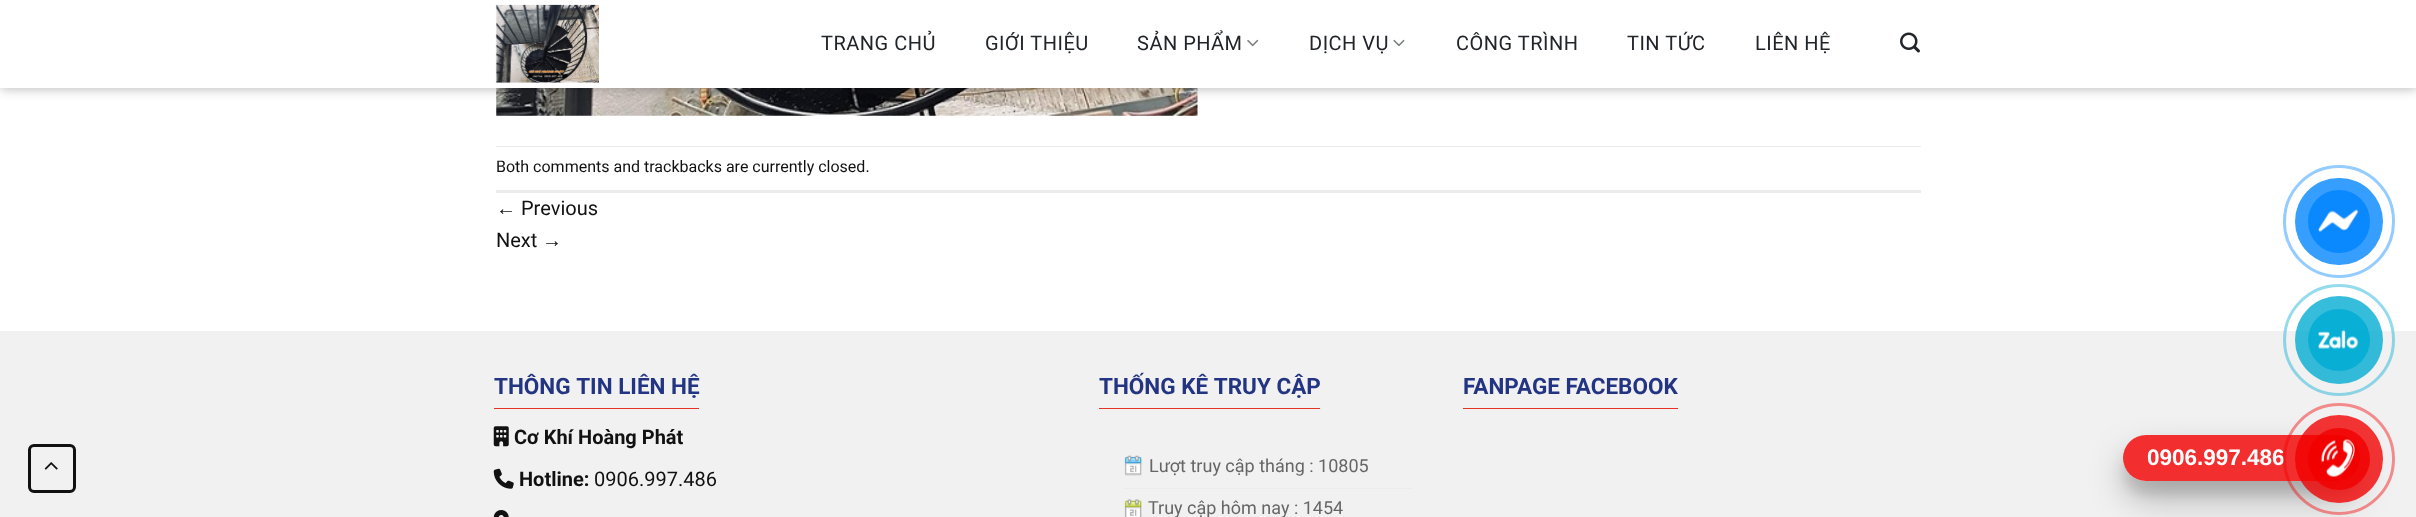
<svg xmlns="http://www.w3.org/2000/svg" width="2416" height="517">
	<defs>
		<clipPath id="clip1"><path d="M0 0H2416V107H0ZM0 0H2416V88H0Z" clip-rule="evenodd" /></clipPath>
		<clipPath id="clip2"><path d="M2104 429H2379V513H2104ZM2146 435H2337C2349.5 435 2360 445.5 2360 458C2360 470.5 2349.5 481 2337 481H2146C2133.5 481 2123 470.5 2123 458C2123 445.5 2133.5 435 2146 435Z" clip-rule="evenodd" /></clipPath>
		<clipPath id="clip3"><path d="M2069 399H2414V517H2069ZM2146 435H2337C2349.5 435 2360 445.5 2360 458C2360 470.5 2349.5 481 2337 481H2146C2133.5 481 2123 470.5 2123 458C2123 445.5 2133.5 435 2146 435Z" clip-rule="evenodd" /></clipPath>
	</defs>
	<rect width="100%" height="100%" fill="#FFFFFF" />
	<image x="496" y="88" width="702" height="28" href="assets/img5.png" />
	<rect x="1" y="1" width="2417" height="88" fill="#000000" fill-opacity="0.15" filter="blur(6px)" />
	<rect x="0" y="0" width="2416" height="88" fill="#FFFFFF" />
	<g clip-path="url(#clip1)">
		<rect x="0" y="0" width="2416" height="88" fill="#000000" fill-opacity="0.15" filter="blur(6px)" />
	</g>
	<image x="495" y="4" width="104" height="79" href="assets/img1.png" />
	<g font-family="Roboto" font-size="20" letter-spacing="0.5" fill="#212529">
		<text x="821" y="50">TRANG CHỦ</text>
		<text x="985" y="50">GIỚI THIỆU</text>
		<text x="1137" y="50">SẢN PHẨM</text>
	</g>
	<image x="1247" y="39" width="12" height="8" href="assets/img2.png" />
	<text x="1309" y="50" font-family="Roboto" font-size="20" letter-spacing="0.5" fill="#212529">DỊCH VỤ</text>
	<image x="1393" y="39" width="12" height="8" href="assets/img3.png" />
	<g font-family="Roboto" font-size="20" letter-spacing="0.5" fill="#212529">
		<text x="1456" y="50">CÔNG TRÌNH</text>
		<text x="1627" y="50">TIN TỨC</text>
		<text x="1755" y="50">LIÊN HỆ</text>
	</g>
	<image x="1900" y="32" width="20" height="21" href="assets/img4.png" />
	<rect x="496" y="146" width="1425" height="1" fill="#ECECEC" />
	<rect x="496" y="190" width="1425" height="3" fill="#ECECEC" />
	<text x="496" y="172" font-family="Roboto" font-size="16" fill="#111111">Both comments and trackbacks are currently closed.</text>
	<text x="496" y="215" font-family="Liberation Sans" font-size="20" fill="#111111">←</text>
	<g font-family="Roboto" font-size="20" fill="#111111">
		<text x="521" y="215">Previous</text>
		<text x="496" y="247">Next</text>
	</g>
	<text x="542" y="247" font-family="Liberation Sans" font-size="20" fill="#111111">→</text>
	<rect x="0" y="331" width="2416" height="186" fill="#F1F1F1" />
	<rect x="29.5" y="445.5" width="45" height="46" rx="4.5" fill="none" stroke="#111111" stroke-width="3" />
	<image x="44" y="462" width="14" height="8" href="assets/img6.png" />
	<text x="494" y="394" font-family="Roboto" font-size="22.5" font-weight="700" fill="#233482">THÔNG TIN LIÊN HỆ</text>
	<rect x="494" y="408" width="205" height="1" fill="#E33322" />
	<image x="493" y="426" width="16" height="21" href="assets/img7.png" />
	<text x="514" y="444" font-family="Roboto" font-size="20" font-weight="700" fill="#111111">Cơ Khí Hoàng Phát</text>
	<image x="493" y="468" width="21" height="21" href="assets/img8.png" />
	<text x="519" y="486" font-family="Roboto" font-size="20" font-weight="700" fill="#111111">Hotline:</text>
	<text x="594" y="486" font-family="Roboto" font-size="20" fill="#111111">0906.997.486</text>
	<image x="493" y="510" width="16" height="7" href="assets/img9.png" />
	<text x="1099" y="394" font-family="Roboto" font-size="22.5" font-weight="700" fill="#233482">THỐNG KÊ TRUY CẬP</text>
	<rect x="1099" y="408" width="221" height="1" fill="#E33322" />
	<rect x="1124" y="488" width="289" height="1" fill="#ECECEC" />
	<image x="1124" y="455" width="18" height="21" href="assets/img10.png" />
	<text x="1149" y="472" font-family="Roboto" font-size="18" fill="#666666">Lượt truy cập tháng : 10805</text>
	<image x="1124" y="499" width="18" height="18" href="assets/img11.png" />
	<text x="1148" y="514" font-family="Roboto" font-size="18" fill="#666666">Truy cập hôm nay : 1454</text>
	<text x="1463" y="394" font-family="Roboto" font-size="22.5" font-weight="700" fill="#233482">FANPAGE FACEBOOK</text>
	<rect x="1463" y="408" width="215" height="1" fill="#E33322" />
	<rect x="2284.5" y="166.5" width="109" height="110" rx="54.5" fill="none" stroke="#94CCFF" stroke-width="3" />
	<rect x="2295" y="178" width="88" height="87" rx="43.5" fill="#369EFF" />
	<rect x="2308" y="190" width="62" height="63" rx="31" fill="#0A89FF" />
	<image x="2318" y="209" width="41" height="23" href="assets/img12.png" />
	<circle cx="2339" cy="340" r="54.5" fill="none" stroke="#00ABD3" stroke-opacity="0.42" stroke-width="3" />
	<circle cx="2339" cy="340" r="44" fill="#00ABD3" fill-opacity="0.79" />
	<circle cx="2339" cy="340" r="31" fill="#00ABD3" fill-opacity="0.81" />
	<image x="2318" y="330" width="41" height="19" href="assets/img13.png" />
	<g clip-path="url(#clip2)">
		<rect x="2123" y="448" width="237" height="46" rx="23" fill="#000000" fill-opacity="0.1" filter="blur(6px)" />
	</g>
	<g clip-path="url(#clip3)">
		<rect x="2123" y="453" width="237" height="46" rx="23" fill="#000000" fill-opacity="0.25" filter="blur(17.5px)" />
	</g>
	<rect x="2123" y="435" width="237" height="46" rx="23" fill="#F20000" fill-opacity="0.81" />
	<text x="2147" y="465" font-family="Liberation Sans" font-size="22.5" font-weight="700" fill="#FFFFFF">0906.997.486</text>
	<circle cx="2339" cy="459" r="54.5" fill="none" stroke="#F20000" stroke-opacity="0.42" stroke-width="3" />
	<circle cx="2339" cy="459" r="44" fill="#F20000" fill-opacity="0.79" />
	<circle cx="2339" cy="459" r="31" fill="#F20000" fill-opacity="0.81" />
	<image x="2321" y="439" width="34" height="38" href="assets/img14.png" />
</svg>
